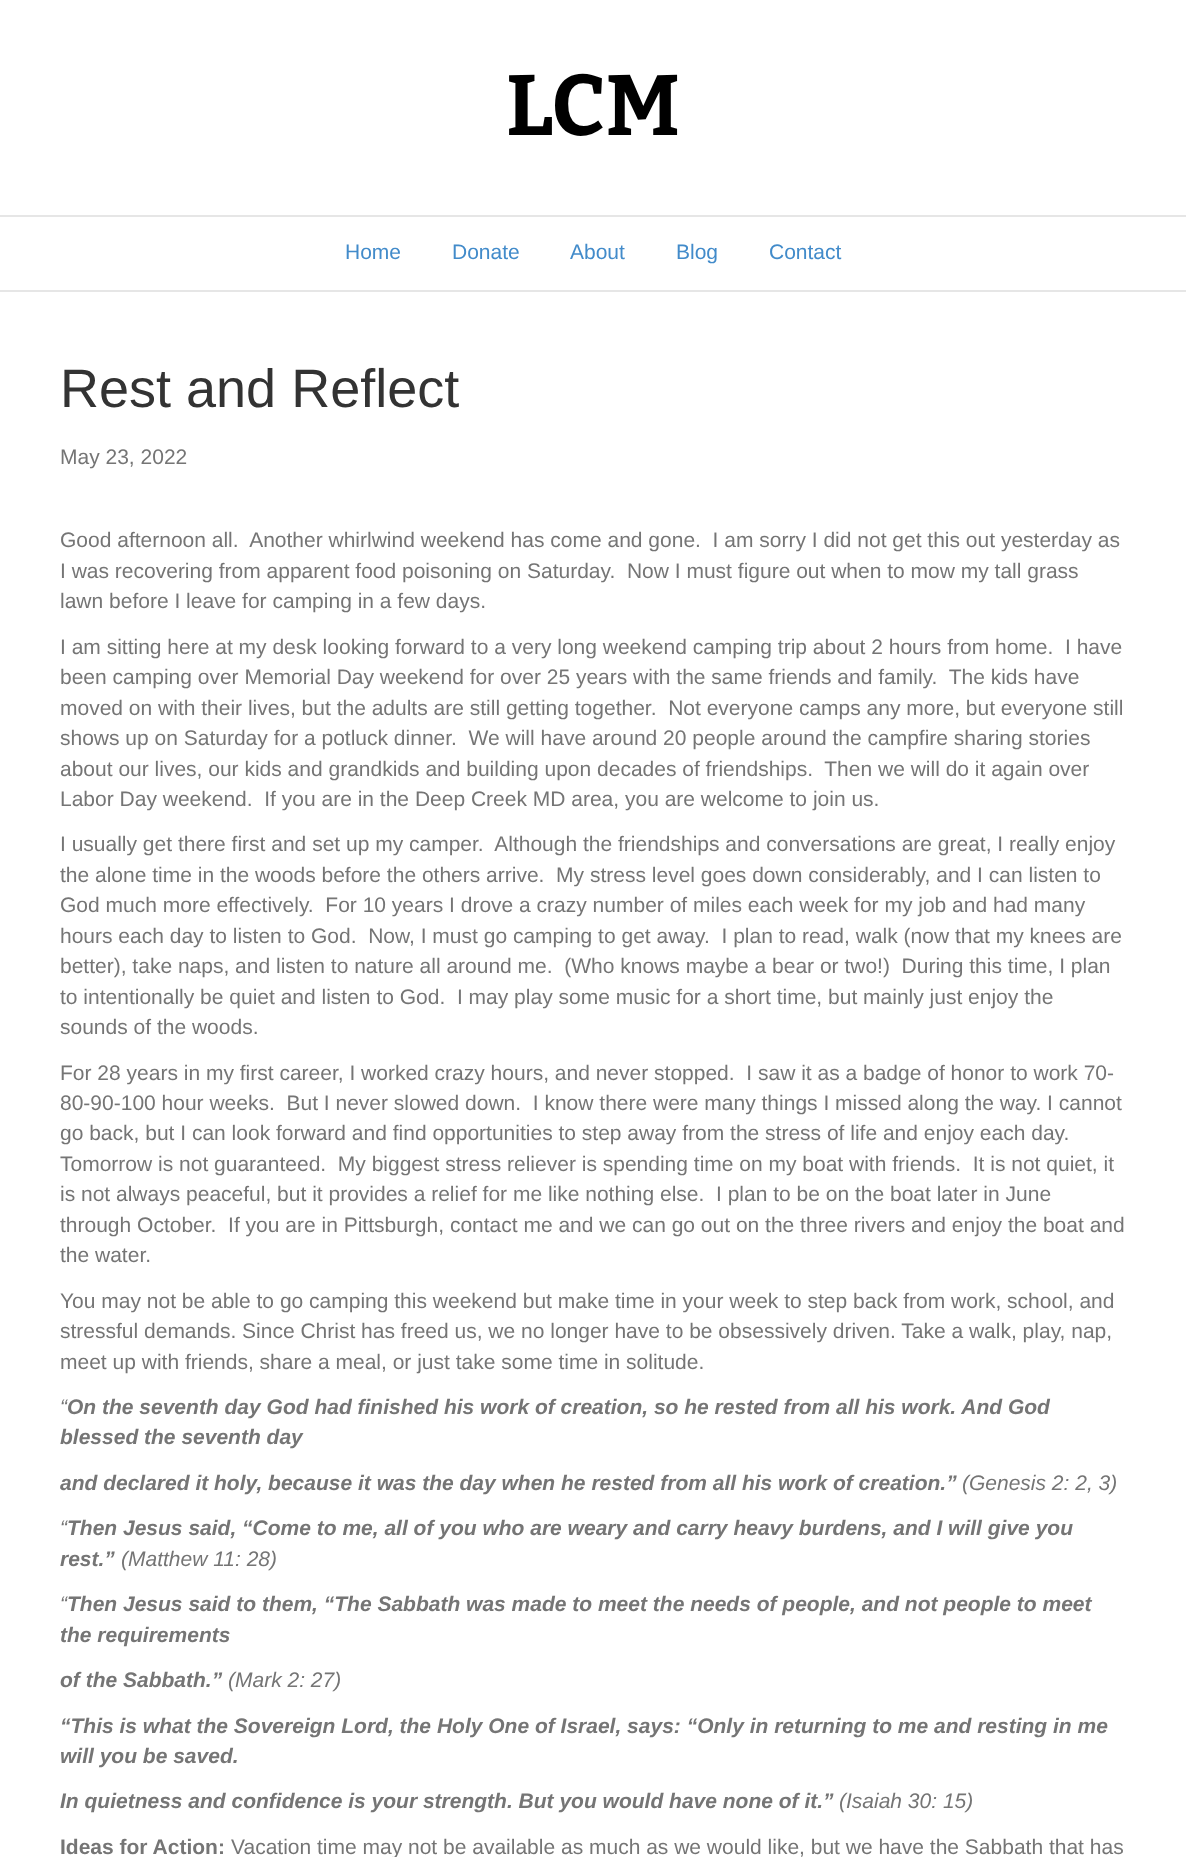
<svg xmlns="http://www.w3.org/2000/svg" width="1186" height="1857">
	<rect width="100%" height="100%" fill="#FFFFFF" />
	<text x="506" y="135" font-family="Bitter" font-size="85.5" font-weight="100" fill="#000000">LCM</text>
	<rect x="0" y="215" width="1186" height="2" fill="#E6E6E6" />
	<rect x="0" y="290" width="1186" height="2" fill="#E6E6E6" />
	<g font-family="Liberation Sans" font-size="21" fill="#428BCA">
		<text x="345" y="259">Home</text>
		<text x="452" y="259">Donate</text>
		<text x="570" y="259">About</text>
		<text x="676" y="259">Blog</text>
		<text x="769" y="259">Contact</text>
	</g>
	<text x="60" y="407" font-family="Liberation Sans" font-size="54" fill="#333333">Rest and Reflect</text>
	<g font-family="Liberation Sans" font-size="21" fill="#757575">
		<text x="60" y="464">May 23, 2022</text>
		<text x="60" y="547" xml:space="preserve">Good afternoon all.  Another whirlwind weekend has come and gone.  I am sorry I did not get this out yesterday as</text>
		<text x="60" y="578" xml:space="preserve">I was recovering from apparent food poisoning on Saturday.  Now I must figure out when to mow my tall grass</text>
		<text x="60" y="608">lawn before I leave for camping in a few days.</text>
		<text x="60" y="654" xml:space="preserve">I am sitting here at my desk looking forward to a very long weekend camping trip about 2 hours from home.  I have</text>
		<text x="60" y="684" xml:space="preserve">been camping over Memorial Day weekend for over 25 years with the same friends and family.  The kids have</text>
		<text x="60" y="715" xml:space="preserve">moved on with their lives, but the adults are still getting together.  Not everyone camps any more, but everyone still</text>
		<text x="60" y="745" xml:space="preserve">shows up on Saturday for a potluck dinner.  We will have around 20 people around the campfire sharing stories</text>
		<text x="60" y="776" xml:space="preserve">about our lives, our kids and grandkids and building upon decades of friendships.  Then we will do it again over</text>
		<text x="60" y="806" xml:space="preserve">Labor Day weekend.  If you are in the Deep Creek MD area, you are welcome to join us.</text>
		<text x="60" y="851" xml:space="preserve">I usually get there first and set up my camper.  Although the friendships and conversations are great, I really enjoy</text>
		<text x="60" y="882" xml:space="preserve">the alone time in the woods before the others arrive.  My stress level goes down considerably, and I can listen to</text>
		<text x="60" y="912" xml:space="preserve">God much more effectively.  For 10 years I drove a crazy number of miles each week for my job and had many</text>
		<text x="60" y="943" xml:space="preserve">hours each day to listen to God.  Now, I must go camping to get away.  I plan to read, walk (now that my knees are</text>
		<text x="60" y="973" xml:space="preserve">better), take naps, and listen to nature all around me.  (Who knows maybe a bear or two!)  During this time, I plan</text>
		<text x="60" y="1004" xml:space="preserve">to intentionally be quiet and listen to God.  I may play some music for a short time, but mainly just enjoy the</text>
		<text x="60" y="1034">sounds of the woods.</text>
		<text x="60" y="1080" xml:space="preserve">For 28 years in my first career, I worked crazy hours, and never stopped.  I saw it as a badge of honor to work 70-</text>
		<text x="60" y="1110" xml:space="preserve">80-90-100 hour weeks.  But I never slowed down.  I know there were many things I missed along the way. I cannot</text>
		<text x="60" y="1140">go back, but I can look forward and find opportunities to step away from the stress of life and enjoy each day.</text>
		<text x="60" y="1171" xml:space="preserve">Tomorrow is not guaranteed.  My biggest stress reliever is spending time on my boat with friends.  It is not quiet, it</text>
		<text x="60" y="1201" xml:space="preserve">is not always peaceful, but it provides a relief for me like nothing else.  I plan to be on the boat later in June</text>
		<text x="60" y="1232" xml:space="preserve">through October.  If you are in Pittsburgh, contact me and we can go out on the three rivers and enjoy the boat and</text>
		<text x="60" y="1262">the water.</text>
		<text x="60" y="1308">You may not be able to go camping this weekend but make time in your week to step back from work, school, and</text>
		<text x="60" y="1338">stressful demands. Since Christ has freed us, we no longer have to be obsessively driven. Take a walk, play, nap,</text>
		<text x="60" y="1369">meet up with friends, share a meal, or just take some time in solitude.</text>
	</g>
	<text x="60" y="1414" font-family="Liberation Sans" font-size="21" font-style="italic" fill="#757575">“</text>
	<g font-family="Liberation Sans" font-size="21" font-weight="700" font-style="italic" fill="#757575">
		<text x="67" y="1414">On the seventh day God had finished his work of creation, so he rested from all his work. And God</text>
		<text x="60" y="1444">blessed the seventh day</text>
		<text x="60" y="1490">and declared it holy, because it was the day when he rested from all his work of creation.”</text>
	</g>
	<g font-family="Liberation Sans" font-size="21" font-style="italic" fill="#757575">
		<text x="962" y="1490">(Genesis 2: 2, 3)</text>
		<text x="60" y="1535">“</text>
	</g>
	<g font-family="Liberation Sans" font-size="21" font-weight="700" font-style="italic" fill="#757575">
		<text x="67" y="1535">Then Jesus said, “Come to me, all of you who are weary and carry heavy burdens, and I will give you</text>
		<text x="60" y="1566">rest.”</text>
	</g>
	<g font-family="Liberation Sans" font-size="21" font-style="italic" fill="#757575">
		<text x="121" y="1566">(Matthew 11: 28)</text>
		<text x="60" y="1611">“</text>
	</g>
	<g font-family="Liberation Sans" font-size="21" font-weight="700" font-style="italic" fill="#757575">
		<text x="67" y="1611">Then Jesus said to them, “The Sabbath was made to meet the needs of people, and not people to meet</text>
		<text x="60" y="1642">the requirements</text>
		<text x="60" y="1687">of the Sabbath.”</text>
	</g>
	<text x="228" y="1687" font-family="Liberation Sans" font-size="21" font-style="italic" fill="#757575">(Mark 2: 27)</text>
	<g font-family="Liberation Sans" font-size="21" font-weight="700" font-style="italic" fill="#757575">
		<text x="60" y="1733">“This is what the Sovereign Lord, the Holy One of Israel, says: “Only in returning to me and resting in me</text>
		<text x="60" y="1763">will you be saved.</text>
		<text x="60" y="1808">In quietness and confidence is your strength. But you would have none of it.”</text>
	</g>
	<text x="839" y="1808" font-family="Liberation Sans" font-size="21" font-style="italic" fill="#757575">(Isaiah 30: 15)</text>
	<text x="60" y="1854" font-family="Liberation Sans" font-size="21" font-weight="700" fill="#757575">Ideas for Action:</text>
	<text x="231" y="1854" font-family="Liberation Sans" font-size="21" fill="#757575">Vacation time may not be available as much as we would like, but we have the Sabbath that has</text>
</svg>
